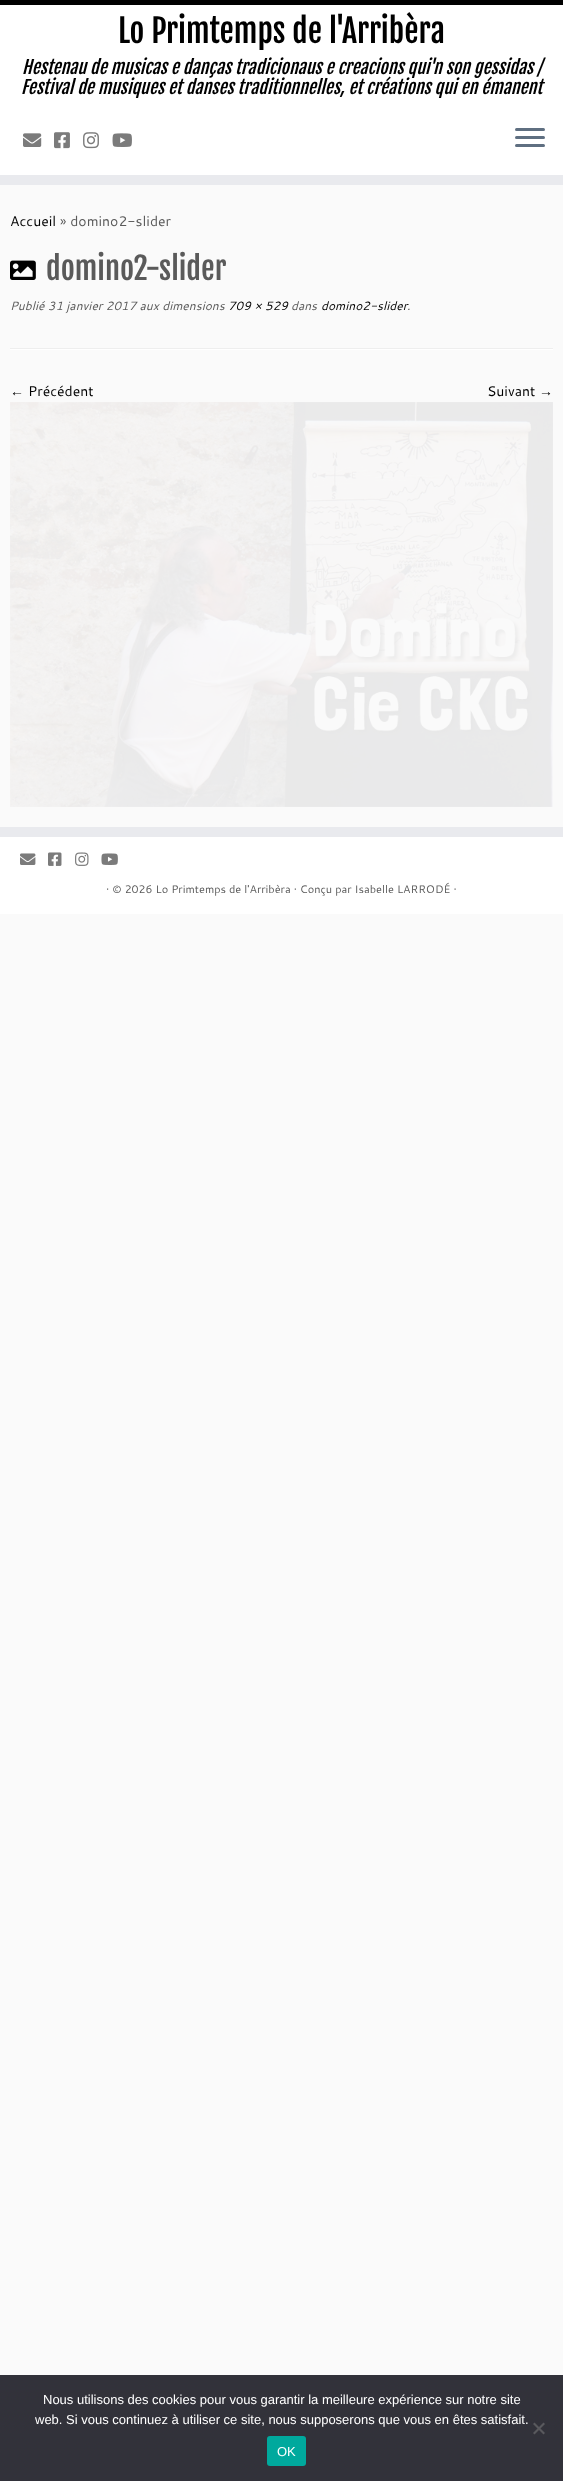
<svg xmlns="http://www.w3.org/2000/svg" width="563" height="2481">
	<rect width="100%" height="100%" fill="#FAFAFA" />
	<rect x="0" y="5" width="563" height="170" fill="#FFFFFF" />
	<rect x="0" y="0" width="563" height="5" fill="#000000" />
	<rect x="0" y="175" width="563" height="10" fill="#E9EAEE" />
	<text x="118" y="43" font-family="Fjalla One" font-size="32" fill="#000000">Lo Primtemps de l'Arribèra</text>
	<g font-family="Fjalla One" font-size="18" font-style="italic" fill="#000000">
		<text x="22" y="74">Hestenau de musicas e danças tradicionaus e creacions qui'n son gessidas /</text>
		<text x="21" y="94">Festival de musiques et danses traditionnelles, et créations qui en émanent</text>
	</g>
	<image x="23" y="133" width="19" height="14" href="assets/img1.png" />
	<image x="54" y="132" width="16" height="17" href="assets/img2.png" />
	<image x="83" y="132" width="16" height="17" href="assets/img3.png" />
	<image x="112" y="133" width="20" height="14" href="assets/img4.png" />
	<rect x="515" y="128" width="30" height="3" rx="1.5" fill="#5F6F81" />
	<rect x="515" y="136" width="30" height="3" rx="1.5" fill="#5F6F81" />
	<rect x="515" y="144" width="30" height="3" rx="1.5" fill="#5F6F81" />
	<text x="10" y="226" font-family="Cantarell" font-size="14" fill="#000000">Accueil</text>
	<text x="60" y="226" font-family="Cantarell" font-size="14" fill="#5A5A5A">» domino2-slider</text>
	<image x="10" y="260" width="26" height="20" href="assets/img5.png" />
	<text x="46" y="280" font-family="Fjalla One" font-size="30.5" fill="#5A5A5A">domino2-slider</text>
	<text x="10" y="310" font-family="Cantarell" font-size="12" font-style="italic" fill="#5A5A5A">Publié 31 janvier 2017 aux dimensions</text>
	<text x="228" y="310" font-family="Cantarell" font-size="12" font-style="italic" fill="#000000">709 × 529</text>
	<text x="291" y="310" font-family="Cantarell" font-size="12" font-style="italic" fill="#5A5A5A">dans</text>
	<text x="321" y="310" font-family="Cantarell" font-size="12" font-style="italic" fill="#000000">domino2-slider</text>
	<text x="407" y="310" font-family="Cantarell" font-size="12" font-style="italic" fill="#5A5A5A">.</text>
	<rect x="10" y="348" width="543" height="1" fill="#EEEEEE" />
	<rect x="10" y="349" width="543" height="1" fill="#FFFFFF" />
	<text x="10" y="396" font-family="Liberation Serif" font-size="14" fill="#000000">←</text>
	<g font-family="Cantarell" font-size="14" fill="#000000">
		<text x="28" y="396">Précédent</text>
		<text x="487" y="396">Suivant</text>
	</g>
	<text x="539" y="396" font-family="Liberation Serif" font-size="14" fill="#000000">→</text>
	<image x="10" y="402" width="543" height="405" href="assets/img6.png" />
	<rect x="0" y="827" width="563" height="10" fill="#E9EAEE" />
	<rect x="0" y="837" width="563" height="77" fill="#FFFFFF" />
	<image x="20" y="853" width="16" height="12" href="assets/img7.png" />
	<image x="48" y="852" width="14" height="14" href="assets/img8.png" />
	<image x="75" y="852" width="14" height="14" href="assets/img9.png" />
	<image x="101" y="853" width="17" height="12" href="assets/img10.png" />
	<text x="106" y="893" font-family="Cantarell" font-size="11" fill="#5A5A5A">· © 2026 Lo Primtemps de l'Arribèra · Conçu par Isabelle LARRODÉ ·</text>
	<rect x="0" y="2375" width="563" height="106" fill="#32323A" />
	<g font-family="Liberation Sans" font-size="13" fill="#FFFFFF">
		<text x="43" y="2404">Nous utilisons des cookies pour vous garantir la meilleure expérience sur notre site</text>
		<text x="35" y="2424">web. Si vous continuez à utiliser ce site, nous supposerons que vous en êtes satisfait.</text>
	</g>
	<path d="M543.5 2422.5L545 2424L534.5 2434.5L533 2433Z" fill="#59595D" />
	<path d="M533 2424L534.5 2422.5L545 2433L543.5 2434.5Z" fill="#59595D" />
	<rect x="267" y="2436" width="39" height="30" rx="3" fill="#00A99D" />
	<text x="277" y="2456" font-family="Liberation Sans" font-size="13" fill="#FFFFFF">OK</text>
</svg>
